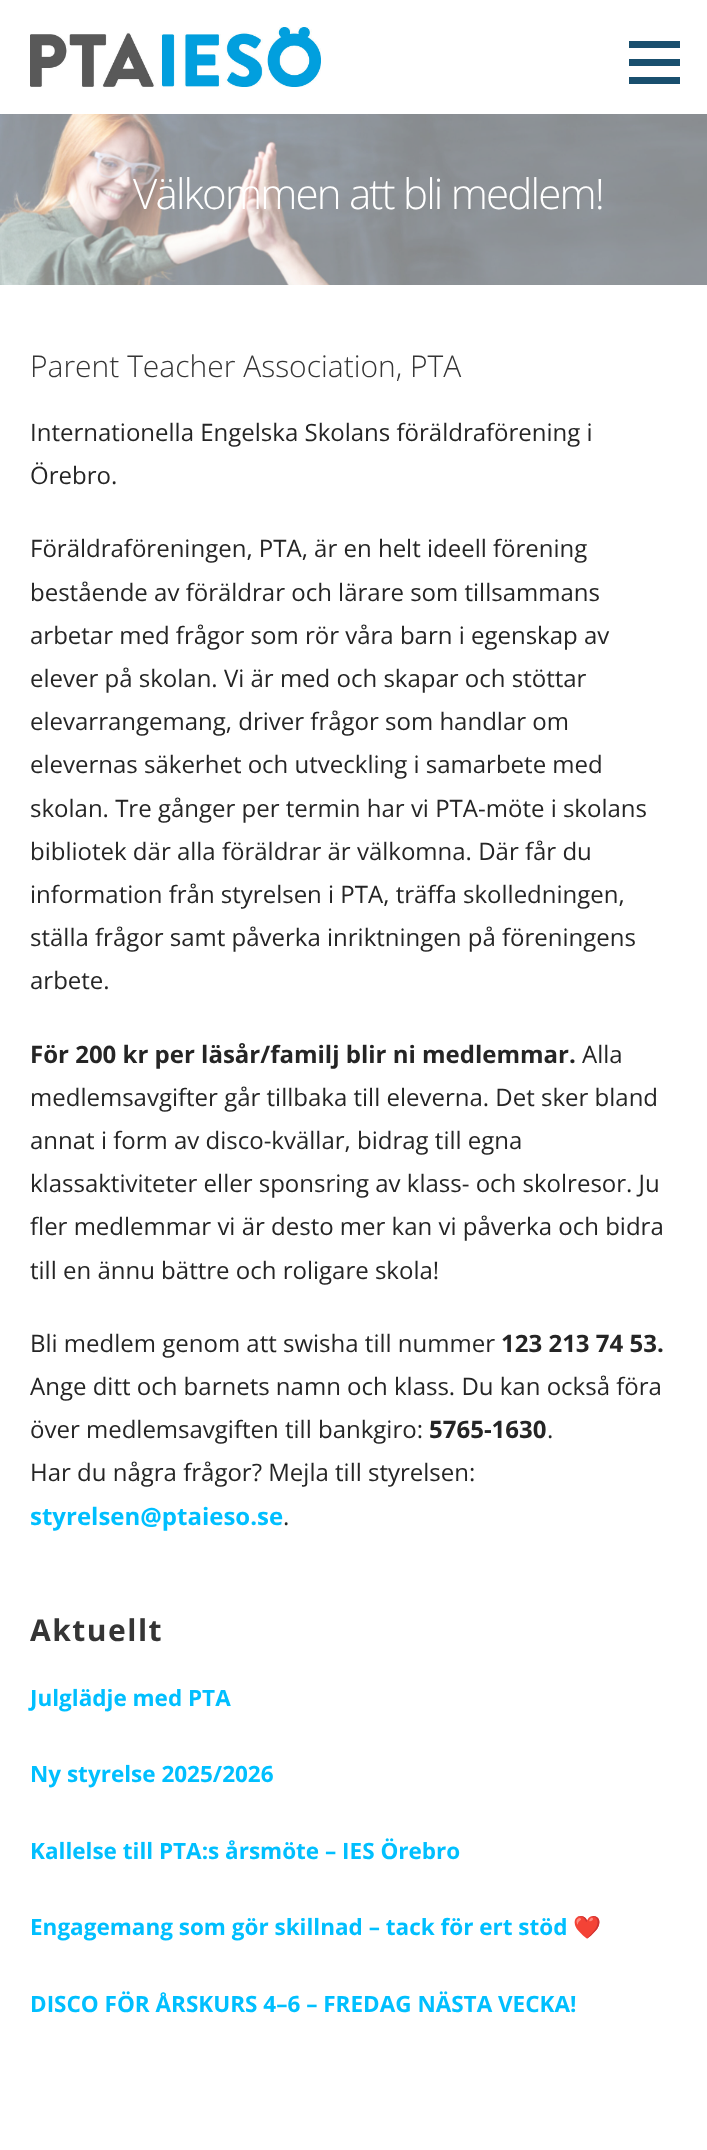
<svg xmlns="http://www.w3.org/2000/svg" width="707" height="2150">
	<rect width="100%" height="100%" fill="#FFFFFF" />
	<image x="30" y="27" width="291" height="60" href="assets/img1.png" />
	<rect x="629" y="41" width="51" height="7" fill="#194F6E" />
	<rect x="629" y="59" width="51" height="7" fill="#194F6E" />
	<rect x="629" y="77" width="51" height="7" fill="#194F6E" />
	<image x="0" y="114" width="707" height="171" href="assets/img2.png" />
	<text x="133" y="209" font-family="Open Sans" font-size="42" font-weight="300" letter-spacing="-1.8" fill="#FFFFFF">Välkommen att bli medlem!</text>
	<text x="30" y="377" font-family="Open Sans" font-size="30" font-weight="300" fill="#353535">Parent Teacher Association, PTA</text>
	<g font-family="Open Sans" font-size="24" fill="#252525">
		<text x="30" y="441">Internationella Engelska Skolans föräldraförening i</text>
		<text x="30" y="484">Örebro.</text>
		<text x="30" y="557">Föräldraföreningen, PTA, är en helt ideell förening</text>
		<text x="30" y="601">bestående av föräldrar och lärare som tillsammans</text>
		<text x="30" y="644">arbetar med frågor som rör våra barn i egenskap av</text>
		<text x="30" y="687">elever på skolan. Vi är med och skapar och stöttar</text>
		<text x="30" y="730">elevarrangemang, driver frågor som handlar om</text>
		<text x="30" y="773">elevernas säkerhet och utveckling i samarbete med</text>
		<text x="30" y="817">skolan. Tre gånger per termin har vi PTA-möte i skolans</text>
		<text x="30" y="860">bibliotek där alla föräldrar är välkomna. Där får du</text>
		<text x="30" y="903">information från styrelsen i PTA, träffa skolledningen,</text>
		<text x="30" y="946">ställa frågor samt påverka inriktningen på föreningens</text>
		<text x="30" y="989">arbete.</text>
	</g>
	<text x="30" y="1063" font-family="Open Sans" font-size="24" font-weight="700" fill="#252525">För 200 kr per läsår/familj blir ni medlemmar.</text>
	<g font-family="Open Sans" font-size="24" fill="#252525">
		<text x="582" y="1063">Alla</text>
		<text x="30" y="1106">medlemsavgifter går tillbaka till eleverna. Det sker bland</text>
		<text x="30" y="1149">annat i form av disco-kvällar, bidrag till egna</text>
		<text x="30" y="1192">klassaktiviteter eller sponsring av klass- och skolresor. Ju</text>
		<text x="30" y="1235">fler medlemmar vi är desto mer kan vi påverka och bidra</text>
		<text x="30" y="1279">till en ännu bättre och roligare skola!</text>
		<text x="30" y="1352">Bli medlem genom att swisha till nummer</text>
	</g>
	<text x="501" y="1352" font-family="Open Sans" font-size="24" font-weight="700" fill="#252525">123 213 74 53.</text>
	<g font-family="Open Sans" font-size="24" fill="#252525">
		<text x="30" y="1395">Ange ditt och barnets namn och klass. Du kan också föra</text>
		<text x="30" y="1438">över medlemsavgiften till bankgiro:</text>
	</g>
	<text x="429" y="1438" font-family="Open Sans" font-size="24" font-weight="700" fill="#252525">5765-1630</text>
	<g font-family="Open Sans" font-size="24" fill="#252525">
		<text x="547" y="1438">.</text>
		<text x="30" y="1481">Har du några frågor? Mejla till styrelsen:</text>
	</g>
	<text x="30" y="1525" font-family="Open Sans" font-size="24" font-weight="700" fill="#00BFFF">styrelsen@ptaieso.se</text>
	<text x="283" y="1525" font-family="Open Sans" font-size="24" fill="#252525">.</text>
	<text x="30" y="1641" font-family="Open Sans" font-size="30" font-weight="700" letter-spacing="1.5" fill="#353535">Aktuellt</text>
	<g font-family="Open Sans" font-size="22.5" font-weight="700" fill="#00BFFF">
		<text x="30" y="1706">Julglädje med PTA</text>
		<text x="30" y="1782">Ny styrelse 2025/2026</text>
		<text x="30" y="1859">Kallelse till PTA:s årsmöte – IES Örebro</text>
		<text x="30" y="1935">Engagemang som gör skillnad – tack för ert stöd</text>
	</g>
	<text x="573" y="1935" font-family="Noto Color Emoji" font-size="22.5" font-weight="700" fill="#00BFFF">❤️</text>
	<text x="30" y="2012" font-family="Open Sans" font-size="22.5" font-weight="700" fill="#00BFFF">DISCO FÖR ÅRSKURS 4–6 – FREDAG NÄSTA VECKA!</text>
</svg>
